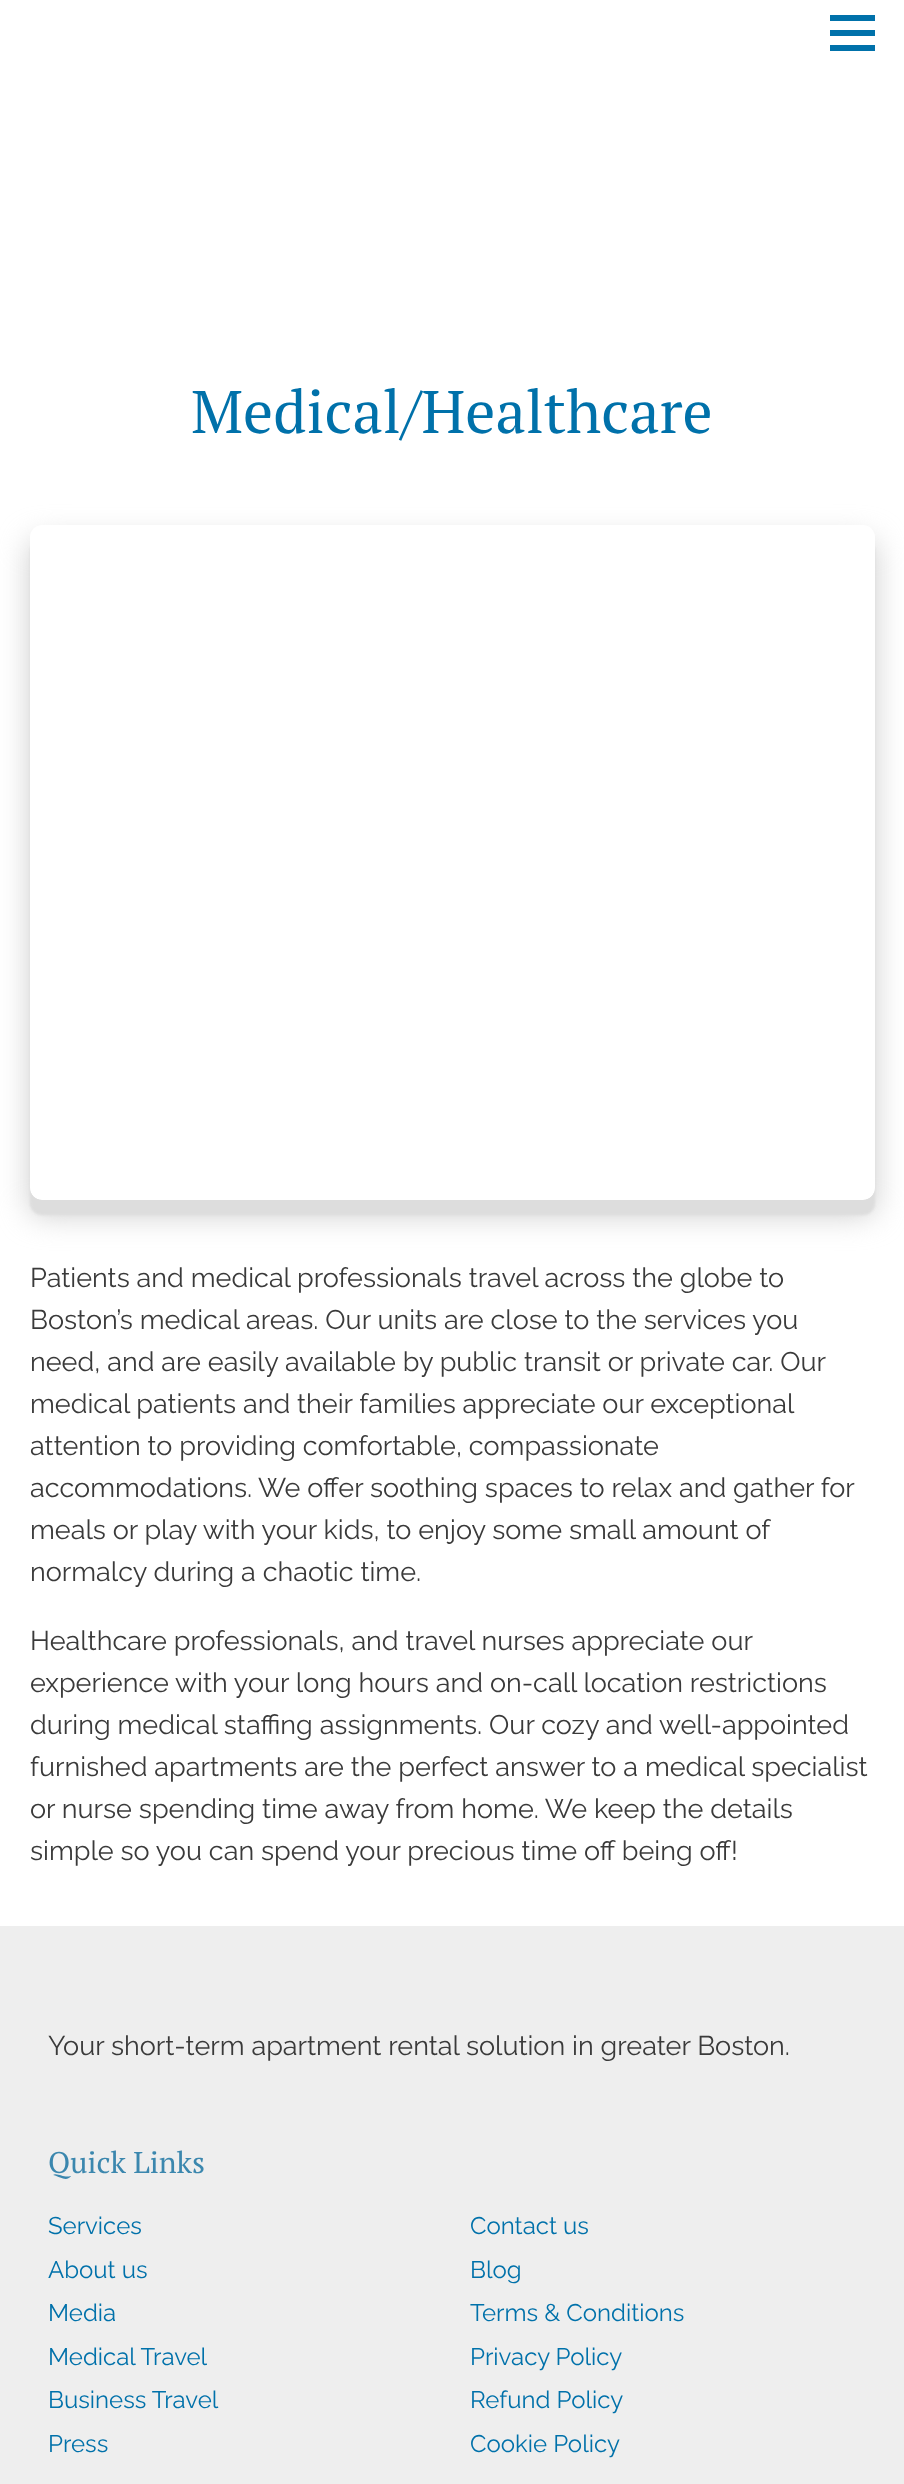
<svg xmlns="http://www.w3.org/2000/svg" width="904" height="2484">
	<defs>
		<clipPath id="clip1"><path d="M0 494H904V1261H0ZM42 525H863C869.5 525 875 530.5 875 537V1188C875 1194.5 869.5 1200 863 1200H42C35.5 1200 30 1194.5 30 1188V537C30 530.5 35.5 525 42 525Z" clip-rule="evenodd" /></clipPath>
		<clipPath id="clip2"><path d="M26 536H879V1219H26ZM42 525H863C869.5 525 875 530.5 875 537V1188C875 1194.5 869.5 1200 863 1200H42C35.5 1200 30 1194.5 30 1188V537C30 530.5 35.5 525 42 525Z" clip-rule="evenodd" /></clipPath>
	</defs>
	<rect width="100%" height="100%" fill="#FFFFFF" />
	<rect x="830" y="15" width="45" height="6" fill="#0071AA" />
	<rect x="830" y="30" width="45" height="6" fill="#0071AA" />
	<rect x="830" y="45" width="45" height="6" fill="#0071AA" />
	<text x="191" y="433" font-family="PT Serif" font-size="60" fill="#0071AA">Medical/Healthcare</text>
	<g clip-path="url(#clip1)">
		<rect x="30" y="540" width="845" height="675" rx="12" fill="#CCCCCC" filter="blur(15px)" />
	</g>
	<g clip-path="url(#clip2)">
		<rect x="30" y="540" width="845" height="675" rx="12" fill="#DDDDDD" filter="blur(1px)" />
	</g>
	<g font-family="Raleway" font-size="27" fill="#3A3A3A">
		<text x="30" y="1287">Patients and medical professionals travel across the globe to</text>
		<text x="30" y="1329">Boston’s medical areas. Our units are close to the services you</text>
		<text x="30" y="1371">need, and are easily available by public transit or private car. Our</text>
		<text x="30" y="1413">medical patients and their families appreciate our exceptional</text>
		<text x="30" y="1455">attention to providing comfortable, compassionate</text>
		<text x="30" y="1497">accommodations. We offer soothing spaces to relax and gather for</text>
		<text x="30" y="1539">meals or play with your kids, to enjoy some small amount of</text>
		<text x="30" y="1581">normalcy during a chaotic time.</text>
		<text x="30" y="1650">Healthcare professionals, and travel nurses appreciate our</text>
		<text x="30" y="1692">experience with your long hours and on-call location restrictions</text>
		<text x="30" y="1734">during medical staffing assignments. Our cozy and well-appointed</text>
		<text x="30" y="1776">furnished apartments are the perfect answer to a medical specialist</text>
		<text x="30" y="1818">or nurse spending time away from home. We keep the details</text>
		<text x="30" y="1860">simple so you can spend your precious time off being off!</text>
	</g>
	<rect x="0" y="1926" width="904" height="558" fill="#EEEEEE" />
	<text x="48" y="2055" font-family="Raleway" font-size="27" fill="#3A3A3A">Your short-term apartment rental solution in greater Boston.</text>
	<text x="48" y="2173" font-family="PT Serif" font-size="30" fill="#3B87AE">Quick Links</text>
	<g font-family="Raleway" font-size="24" fill="#0071AA">
		<text x="48" y="2234">Services</text>
		<text x="48" y="2278">About us</text>
		<text x="48" y="2321">Media</text>
		<text x="48" y="2365">Medical Travel</text>
		<text x="48" y="2408">Business Travel</text>
		<text x="48" y="2452">Press</text>
		<text x="470" y="2234">Contact us</text>
		<text x="470" y="2278">Blog</text>
		<text x="470" y="2321">Terms &amp; Conditions</text>
		<text x="470" y="2365">Privacy Policy</text>
		<text x="470" y="2408">Refund Policy</text>
		<text x="470" y="2452">Cookie Policy</text>
	</g>
</svg>
